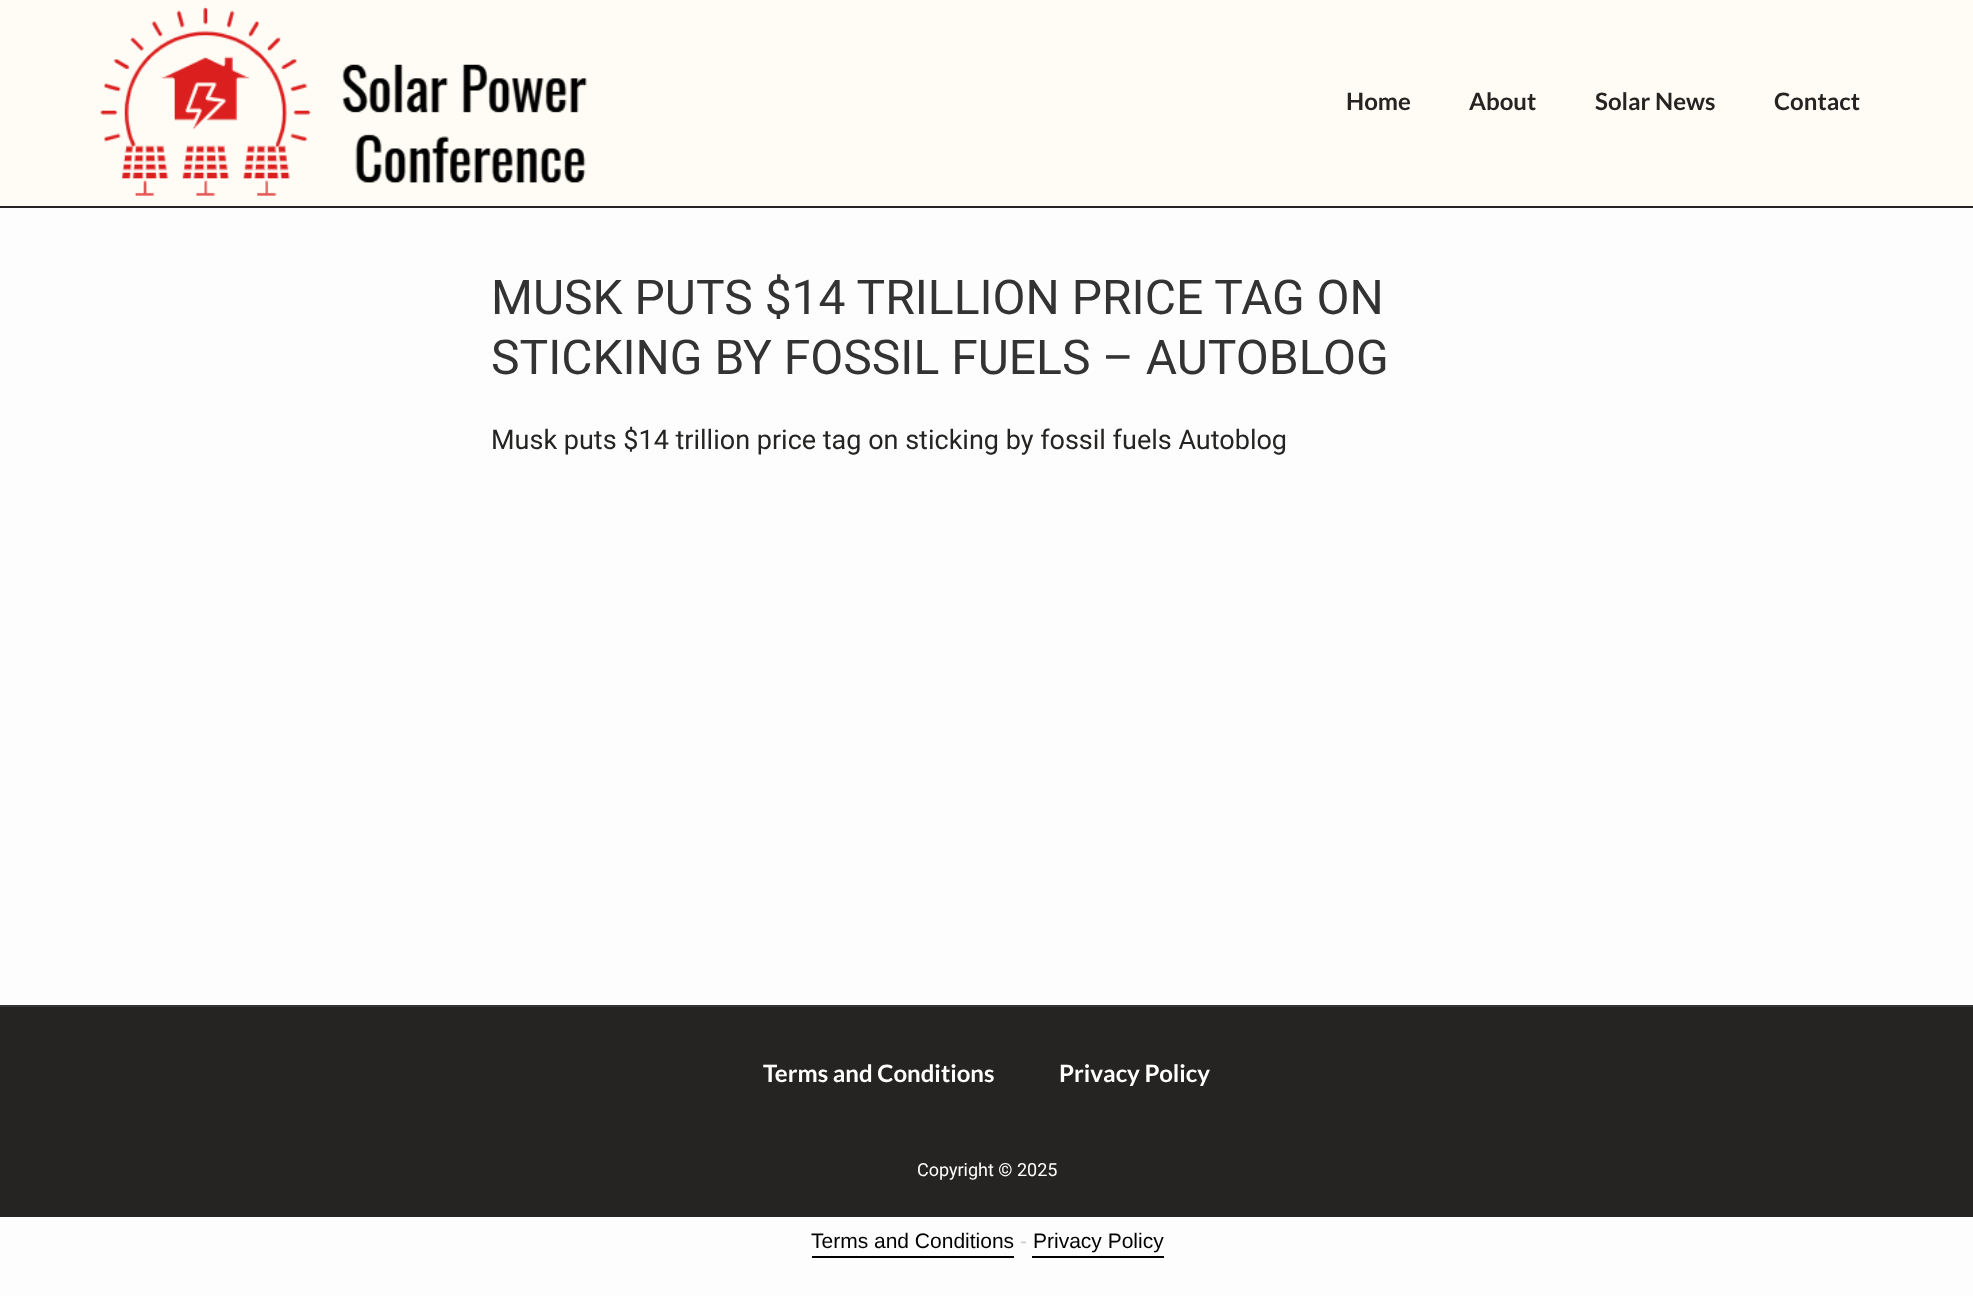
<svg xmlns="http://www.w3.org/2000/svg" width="1973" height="1296">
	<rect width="100%" height="100%" fill="#FDFDFD" />
	<rect x="0" y="0" width="1973" height="206" fill="#FFFCF5" />
	<rect x="0" y="206" width="1973" height="2" fill="#252422" />
	<image x="100" y="6" width="487" height="190" href="assets/img1.png" />
	<g font-family="Lato" font-size="24" font-weight="700" fill="#252422">
		<text x="1346" y="110">Home</text>
		<text x="1469" y="110">About</text>
		<text x="1595" y="110">Solar News</text>
		<text x="1774" y="110">Contact</text>
	</g>
	<g font-family="Roboto" font-size="48" fill="#333333">
		<text x="491" y="314">MUSK PUTS $14 TRILLION PRICE TAG ON</text>
		<text x="491" y="374">STICKING BY FOSSIL FUELS – AUTOBLOG</text>
	</g>
	<text x="491" y="449" font-family="Roboto" font-size="27" fill="#252422">Musk puts $14 trillion price tag on sticking by fossil fuels Autoblog</text>
	<rect x="0" y="1007" width="1973" height="210" fill="#252422" />
	<rect x="0" y="1005" width="1973" height="2" fill="#363533" />
	<g font-family="Lato" font-size="24" font-weight="700" fill="#FFFFFF">
		<text x="763" y="1082">Terms and Conditions</text>
		<text x="1059" y="1082">Privacy Policy</text>
	</g>
	<text x="917" y="1176" font-family="Roboto" font-size="18" fill="#FFFFFF">Copyright © 2025</text>
	<text x="811" y="1248" font-family="Liberation Sans" font-size="21" fill="#000000">Terms and Conditions</text>
	<rect x="812" y="1256" width="202" height="2" fill="#000000" />
	<text x="1020" y="1248" font-family="Liberation Sans" font-size="21" fill="#CCCCCC">-</text>
	<text x="1033" y="1248" font-family="Liberation Sans" font-size="21" fill="#000000">Privacy Policy</text>
	<rect x="1032" y="1256" width="132" height="2" fill="#000000" />
</svg>
